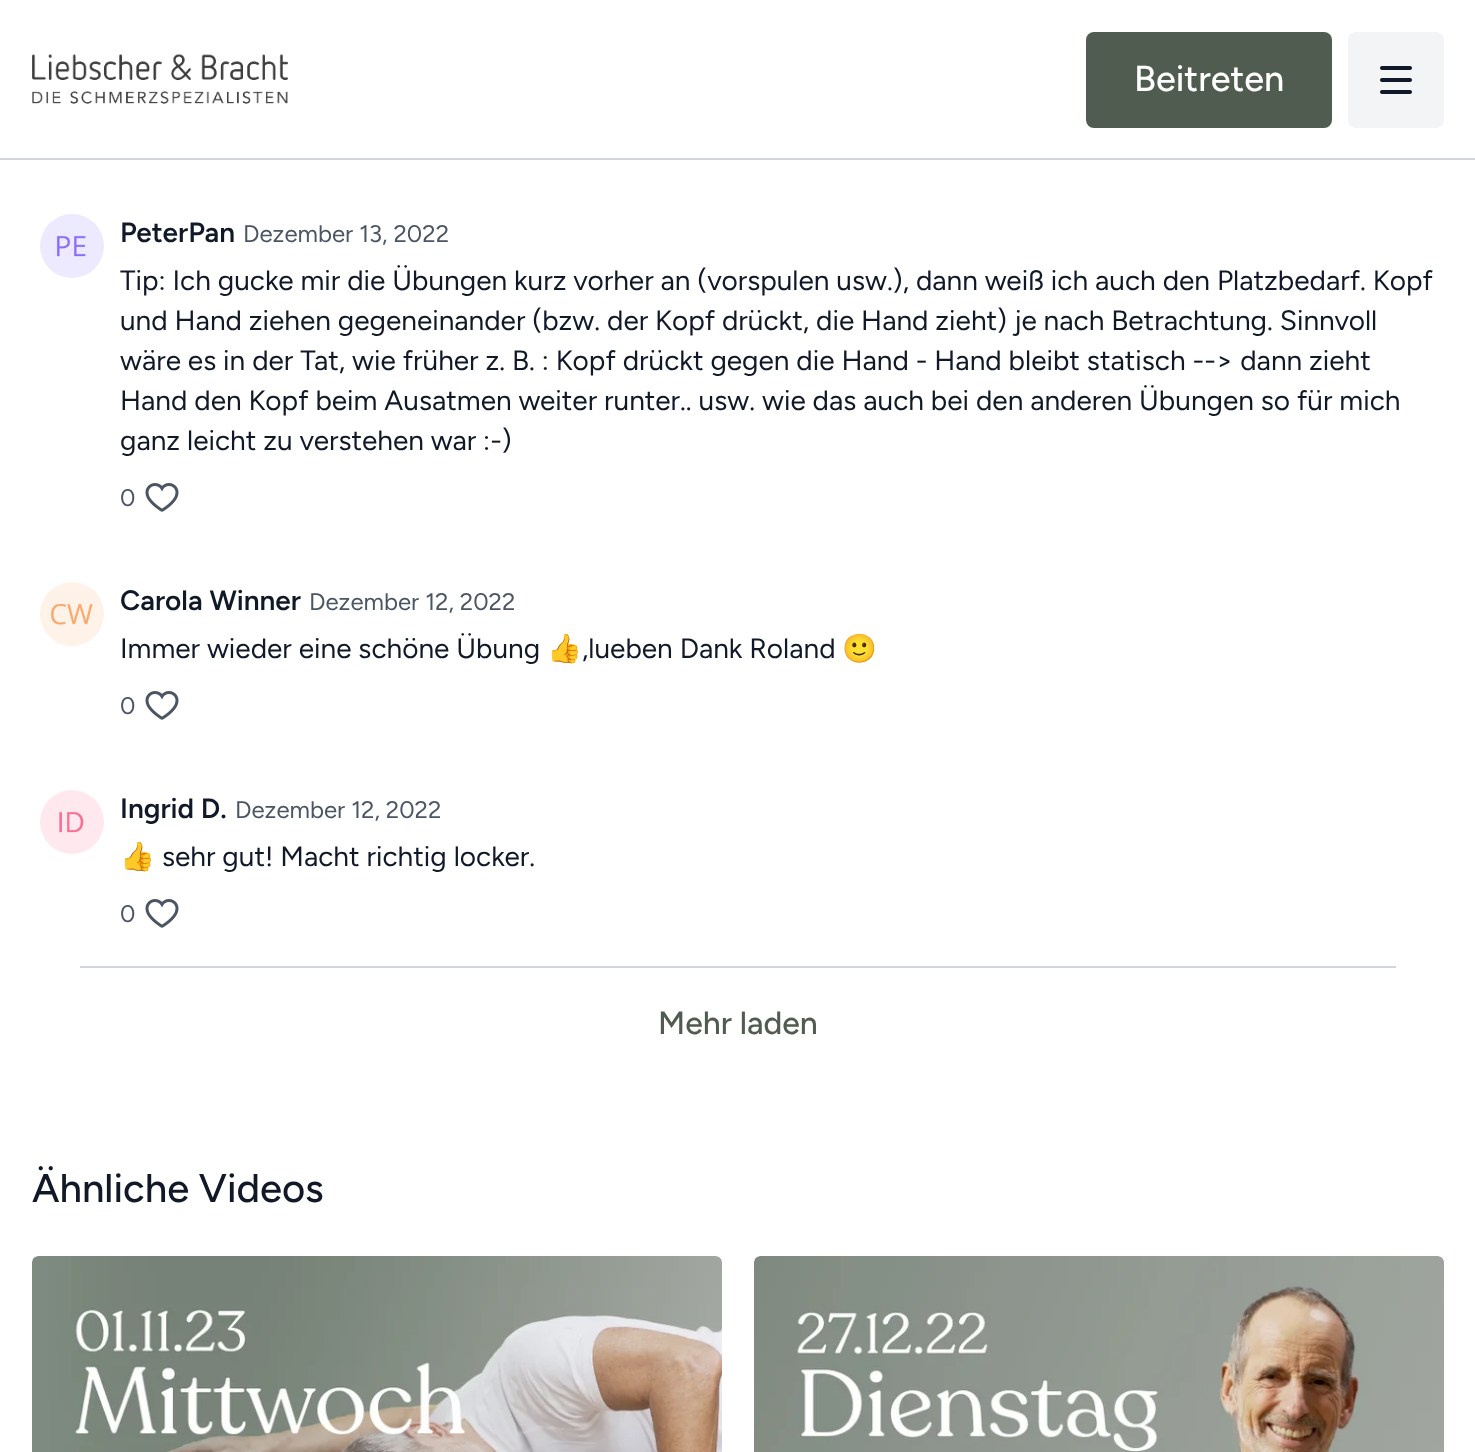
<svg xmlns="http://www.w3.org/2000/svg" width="1475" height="1452">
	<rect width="100%" height="100%" fill="#FFFFFF" />
	<rect x="0" y="158" width="1475" height="2" fill="#D1D5DB" />
	<image x="32" y="54" width="256" height="50" href="assets/img1.png" />
	<rect x="1086" y="32" width="246" height="96" rx="8" fill="#515C50" />
	<text x="1134" y="91" font-family="Figtree" font-size="36" font-weight="500" fill="#FFFFFF">Beitreten</text>
	<rect x="1348" y="32" width="96" height="96" rx="8" fill="#F3F4F6" />
	<image x="1380" y="66" width="32" height="28" href="assets/img2.png" />
	<image x="40" y="214" width="64" height="64" href="assets/img3.png" />
	<text x="120" y="242" font-family="Figtree" font-size="28" font-weight="600" fill="#111827">PeterPan</text>
	<text x="243" y="242" font-family="Figtree" font-size="24" fill="#4B5563">Dezember 13, 2022</text>
	<g font-family="Figtree" font-size="28" fill="#111827">
		<text x="120" y="290">Tip: Ich gucke mir die Übungen kurz vorher an (vorspulen usw.), dann weiß ich auch den Platzbedarf. Kopf</text>
		<text x="120" y="330">und Hand ziehen gegeneinander (bzw. der Kopf drückt, die Hand zieht) je nach Betrachtung. Sinnvoll</text>
		<text x="120" y="370">wäre es in der Tat, wie früher z. B. : Kopf drückt gegen die Hand - Hand bleibt statisch --&gt; dann zieht</text>
		<text x="120" y="410">Hand den Kopf beim Ausatmen weiter runter.. usw. wie das auch bei den anderen Übungen so für mich</text>
		<text x="120" y="450">ganz leicht zu verstehen war :-)</text>
	</g>
	<text x="120" y="506" font-family="Figtree" font-size="24" fill="#4B5563">0</text>
	<image x="145" y="483" width="34" height="29" href="assets/img4.png" />
	<image x="40" y="582" width="64" height="64" href="assets/img5.png" />
	<text x="120" y="610" font-family="Figtree" font-size="28" font-weight="600" fill="#111827">Carola Winner</text>
	<text x="309" y="610" font-family="Figtree" font-size="24" fill="#4B5563">Dezember 12, 2022</text>
	<text x="120" y="658" font-family="Figtree" font-size="28" fill="#111827">Immer wieder eine schöne Übung</text>
	<text x="547" y="658" font-family="Noto Color Emoji" font-size="28" fill="#111827">👍</text>
	<text x="582" y="658" font-family="Figtree" font-size="28" fill="#111827">,lueben Dank Roland</text>
	<text x="842" y="658" font-family="Noto Color Emoji" font-size="28" fill="#111827">🙂</text>
	<text x="120" y="714" font-family="Figtree" font-size="24" fill="#4B5563">0</text>
	<image x="145" y="691" width="34" height="29" href="assets/img4.png" />
	<image x="40" y="790" width="64" height="64" href="assets/img6.png" />
	<text x="120" y="818" font-family="Figtree" font-size="28" font-weight="600" fill="#111827">Ingrid D.</text>
	<text x="235" y="818" font-family="Figtree" font-size="24" fill="#4B5563">Dezember 12, 2022</text>
	<text x="120" y="866" font-family="Noto Color Emoji" font-size="28" fill="#111827">👍</text>
	<text x="162" y="866" font-family="Figtree" font-size="28" fill="#111827">sehr gut! Macht richtig locker.</text>
	<text x="120" y="922" font-family="Figtree" font-size="24" fill="#4B5563">0</text>
	<image x="145" y="899" width="34" height="29" href="assets/img4.png" />
	<rect x="80" y="966" width="1316" height="2" fill="#D1D5DB" />
	<text x="658" y="1034" font-family="Figtree" font-size="32" font-weight="500" fill="#515C50">Mehr laden</text>
	<text x="32" y="1202" font-family="Figtree" font-size="40" font-weight="500" fill="#111827">Ähnliche Videos</text>
	<image x="32" y="1256" width="690" height="196" href="assets/img7.png" />
	<image x="754" y="1256" width="690" height="196" href="assets/img8.png" />
</svg>
